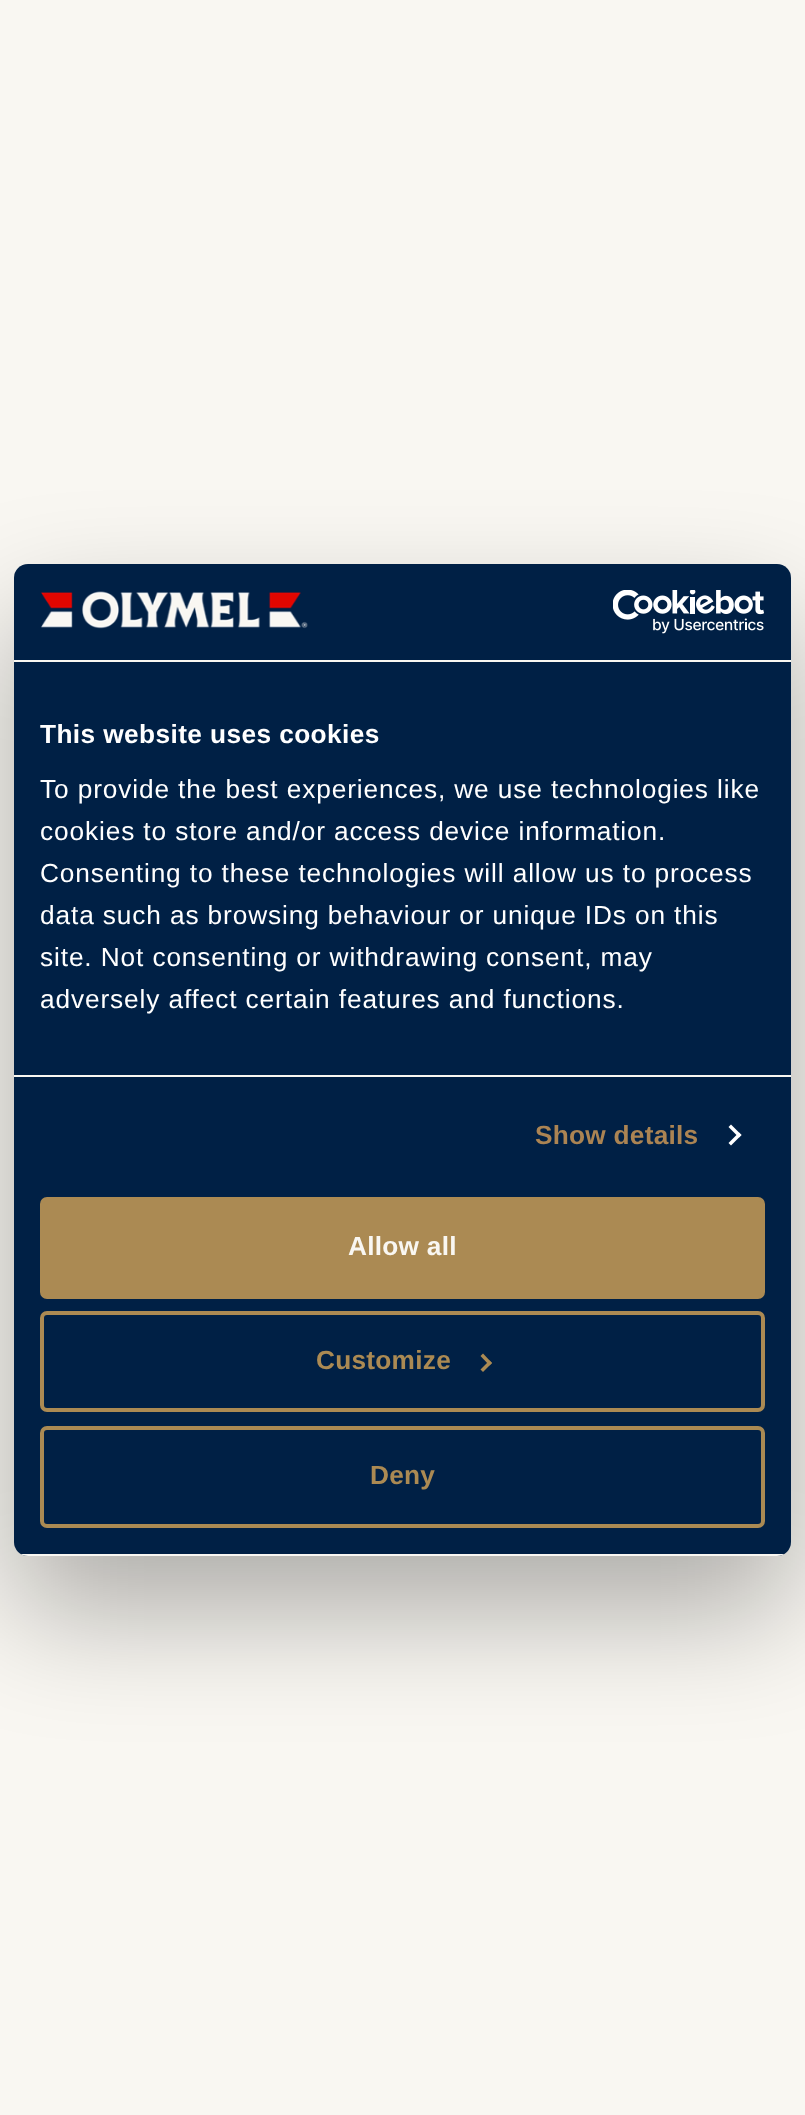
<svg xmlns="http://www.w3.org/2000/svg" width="805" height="2115">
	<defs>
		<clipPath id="clip1"><rect x="14" y="564" width="777" height="992" rx="14" /></clipPath>
	</defs>
	<rect width="100%" height="100%" fill="#F9F7F2" />
	<rect x="14" y="620" width="777" height="992" rx="14" fill="#000000" fill-opacity="0.3" filter="blur(59.5px)" />
	<rect x="14" y="564" width="777" height="992" rx="14" fill="#002045" />
	<rect x="14" y="660" width="777" height="2" fill="#F9F7F2" />
	<image x="41" y="591" width="267" height="38" href="assets/img1.png" />
	<image x="613" y="590" width="151" height="44" href="assets/img2.png" />
	<rect x="14" y="1075" width="777" height="2" fill="#F9F7F2" />
	<text x="40" y="743" font-family="Liberation Sans" font-size="26.25" font-weight="700" letter-spacing="0.4" fill="#FFFFFF">This website uses cookies</text>
	<g font-family="Liberation Sans" font-size="26.25" letter-spacing="0.88" fill="#FFFFFF">
		<text x="40" y="798">To provide the best experiences, we use technologies like</text>
		<text x="40" y="840">cookies to store and/or access device information.</text>
		<text x="40" y="882">Consenting to these technologies will allow us to process</text>
		<text x="40" y="924">data such as browsing behaviour or unique IDs on this</text>
		<text x="40" y="966">site. Not consenting or withdrawing consent, may</text>
		<text x="40" y="1008">adversely affect certain features and functions.</text>
	</g>
	<text x="535" y="1144" font-family="Liberation Sans" font-size="26.25" font-weight="700" letter-spacing="0.25" fill="#AB8453">Show details</text>
	<path d="M731 1124.5L741.5 1135L739 1137.5L728.5 1127Z" fill="#FFFFFF" />
	<path d="M739 1132.5L741.5 1135L731 1145.5L728.5 1143Z" fill="#FFFFFF" />
	<g clip-path="url(#clip1)">
		<rect x="14" y="1554" width="777" height="2" fill="#F9F7F2" />
	</g>
	<rect x="42" y="1199" width="721" height="98" rx="5" fill="#AB8A53" stroke="#AB8A53" stroke-width="4" />
	<text x="348" y="1255" font-family="Liberation Sans" font-size="26.25" font-weight="700" letter-spacing="0.25" fill="#F9F7F2">Allow all</text>
	<rect x="42" y="1313" width="721" height="97" rx="5" fill="none" stroke="#AB8A53" stroke-width="4" />
	<text x="316" y="1369" font-family="Liberation Sans" font-size="26.25" font-weight="700" letter-spacing="0.25" fill="#AB8A53">Customize</text>
	<path d="M483 1353.5L492 1363L489.5 1365.5L480.5 1356Z" fill="#AB8A53" />
	<path d="M489.5 1360.5L492 1363L483 1372L480.5 1369.5Z" fill="#AB8A53" />
	<rect x="42" y="1428" width="721" height="98" rx="5" fill="none" stroke="#AA8A53" stroke-width="4" />
	<text x="370" y="1484" font-family="Liberation Sans" font-size="26.25" font-weight="700" letter-spacing="0.25" fill="#AB8A53">Deny</text>
</svg>
